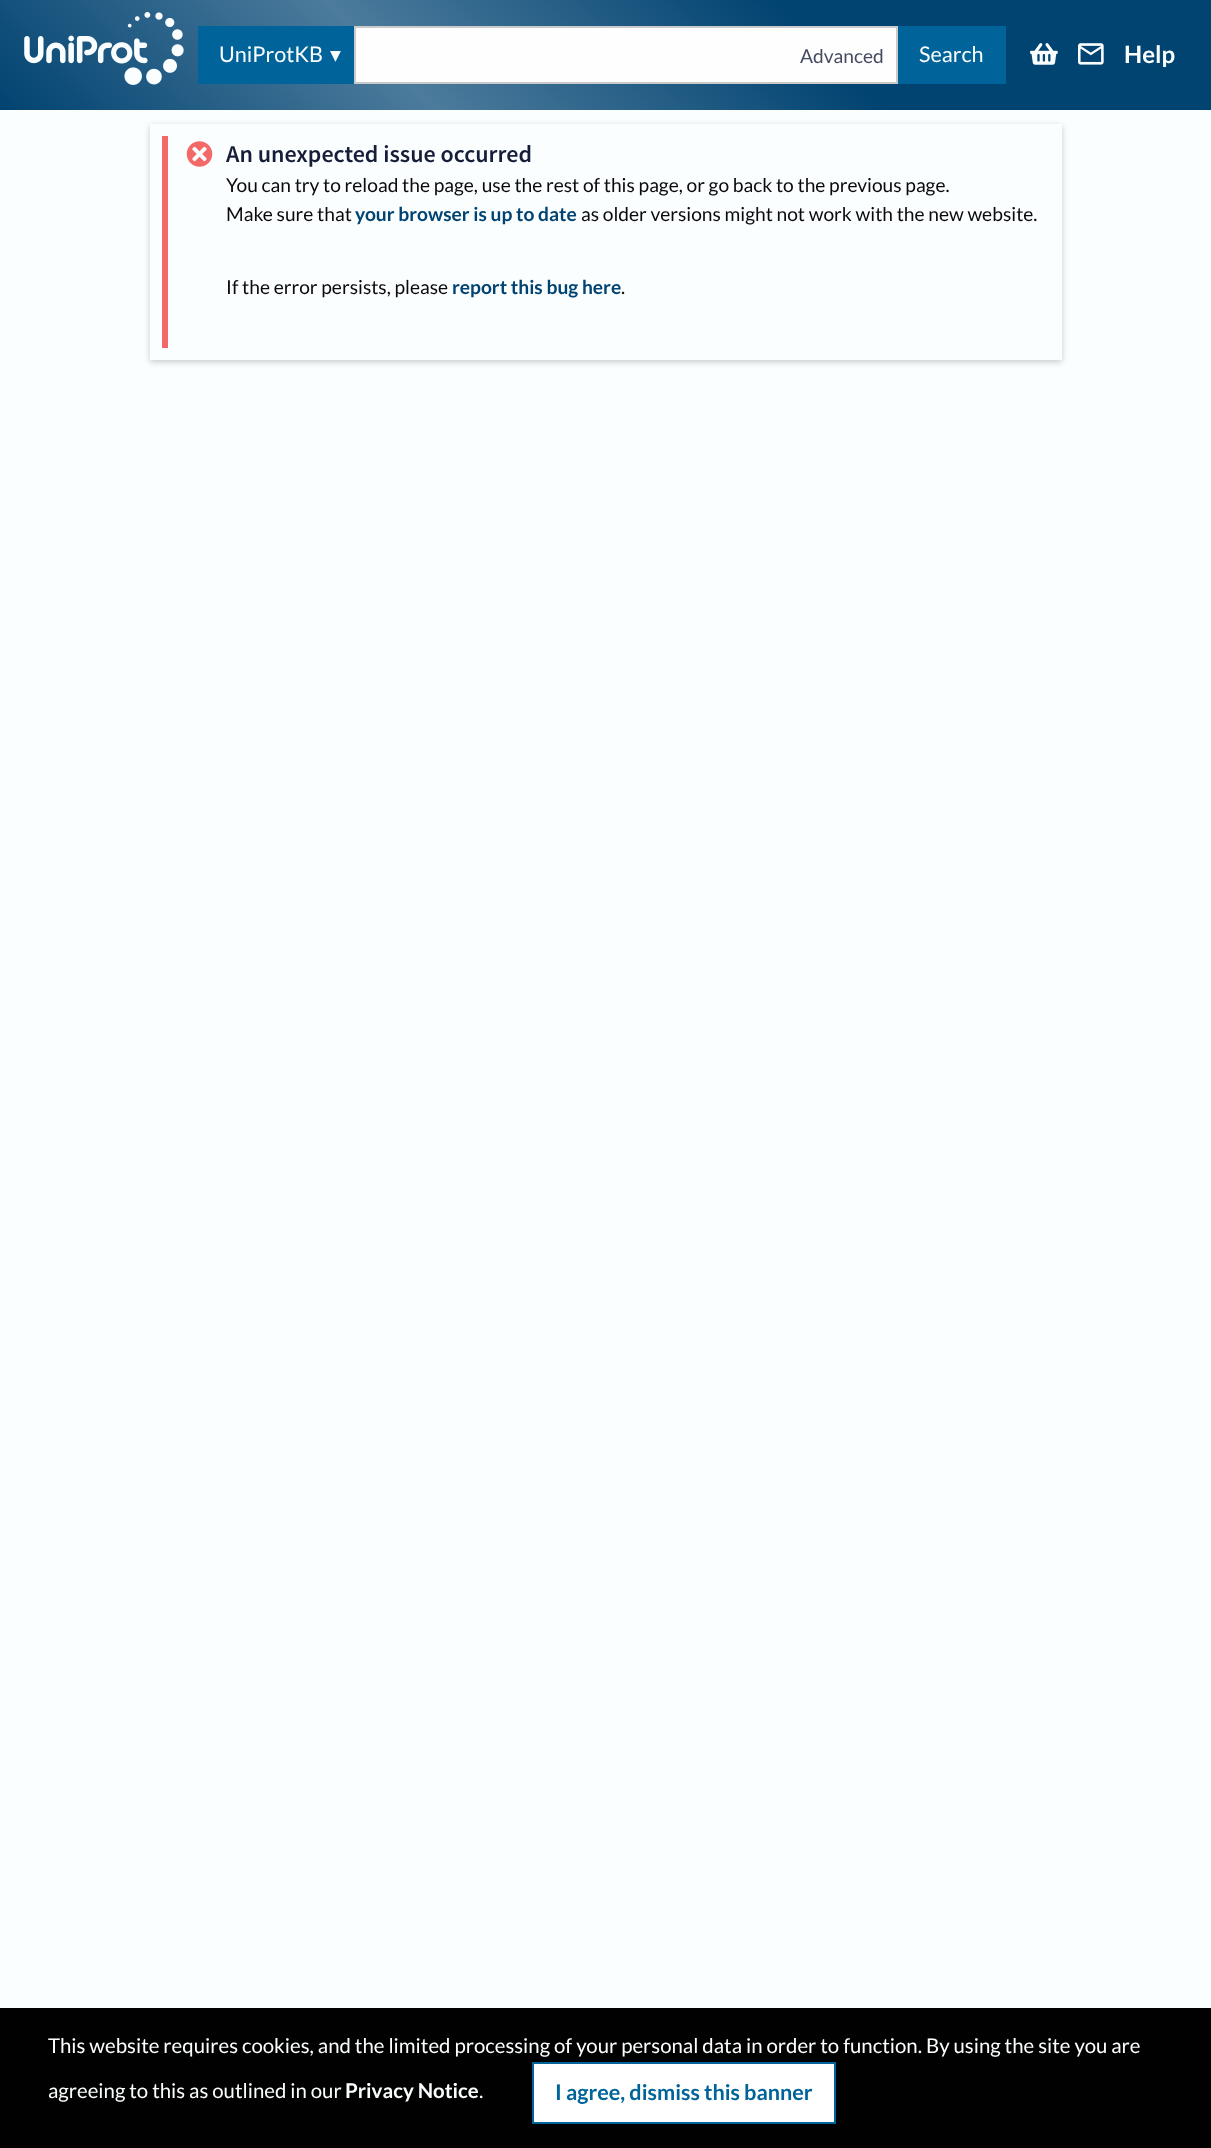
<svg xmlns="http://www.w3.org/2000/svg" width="1211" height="2148">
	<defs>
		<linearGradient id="g1" gradientUnits="userSpaceOnUse" x1="276" y1="385" x2="936" y2="-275"><stop offset="0" stop-color="#014371" /><stop offset="0.33" stop-color="#4C7B9C" /><stop offset="0.67" stop-color="#014371" /><stop offset="1" stop-color="#014371" /></linearGradient>
		<clipPath id="clip1"><path d="M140 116H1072V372H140ZM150 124H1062V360H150Z" clip-rule="evenodd" /></clipPath>
	</defs>
	<rect width="100%" height="100%" fill="#FBFEFF" />
	<rect x="0" y="0" width="1211" height="110" fill="url(#g1)" />
	<image x="24" y="12" width="160" height="73" href="assets/img1.png" />
	<rect x="198" y="26" width="156" height="58" fill="#00639A" />
	<text x="219" y="62" font-family="Lato" font-size="21.6" fill="#FBFEFF">UniProtKB</text>
	<text x="330" y="62" font-family="DejaVu Sans" font-size="21.6" fill="#FBFEFF">▾</text>
	<rect x="355" y="27" width="542" height="56" fill="#FEFEFE" stroke="#CACACA" stroke-width="2" />
	<text x="800" y="63" font-family="Lato" font-size="19.2" fill="#444A60">Advanced</text>
	<rect x="898" y="26" width="108" height="58" fill="#00639A" />
	<text x="919" y="62" font-family="Lato" font-size="21.6" fill="#FBFEFF">Search</text>
	<image x="1030" y="43" width="28" height="22" href="assets/img2.png" />
	<image x="1078" y="43" width="26" height="22" href="assets/img3.png" />
	<text x="1124" y="63" font-family="Lato" font-size="24" font-weight="700" fill="#FBFEFF">Help</text>
	<g clip-path="url(#clip1)">
		<rect x="150" y="126" width="912" height="236" fill="#000000" fill-opacity="0.2" filter="blur(3px)" />
	</g>
	<rect x="162" y="136" width="6" height="212" fill="#F36968" />
	<image x="186" y="141" width="27" height="26" href="assets/img4.png" />
	<text x="226" y="162" font-family="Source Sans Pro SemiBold" font-size="24" font-weight="600" fill="#161D39">An unexpected issue occurred</text>
	<g font-family="Lato" font-size="19.2" fill="#0A0A0A">
		<text x="226" y="192">You can try to reload the page, use the rest of this page, or go back to the previous page.</text>
		<text x="226" y="221">Make sure that</text>
	</g>
	<text x="355" y="221" font-family="Lato" font-size="19.2" font-weight="700" fill="#014371">your browser is up to date</text>
	<g font-family="Lato" font-size="19.2" fill="#0A0A0A">
		<text x="581" y="221">as older versions might not work with the new website.</text>
		<text x="226" y="294">If the error persists, please</text>
	</g>
	<text x="452" y="294" font-family="Lato" font-size="19.2" font-weight="700" fill="#014371">report this bug here</text>
	<text x="621" y="294" font-family="Lato" font-size="19.2" fill="#0A0A0A">.</text>
	<rect x="0" y="2008" width="1211" height="140" fill="#010101" />
	<g font-family="Lato" font-size="20.4" fill="#FBFEFF">
		<text x="48" y="2053">This website requires cookies, and the limited processing of your personal data in order to function. By using the site you are</text>
		<text x="48" y="2098">agreeing to this as outlined in our</text>
	</g>
	<text x="345" y="2098" font-family="Lato" font-size="20.4" font-weight="700" fill="#FBFEFF">Privacy Notice</text>
	<text x="479" y="2098" font-family="Lato" font-size="20.4" fill="#FBFEFF">.</text>
	<rect x="533" y="2063" width="302" height="60" fill="#FFFFFF" stroke="#00639A" stroke-width="2" />
	<text x="555" y="2100" font-family="Lato" font-size="21.6" font-weight="700" fill="#00639A">I agree, dismiss this banner</text>
</svg>
